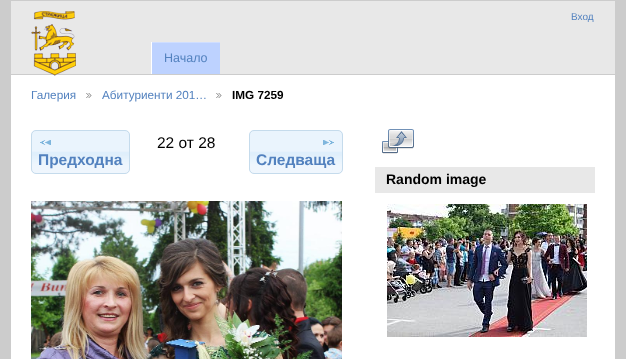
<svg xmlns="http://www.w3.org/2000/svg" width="626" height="359">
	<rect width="100%" height="100%" fill="#CCCCCC" />
	<rect x="11" y="75" width="604" height="284" fill="#FFFFFF" />
	<rect x="11" y="1" width="604" height="73" fill="#E8E8E8" />
	<image x="31" y="11" width="45" height="65" href="assets/img1.png" />
	<text x="571" y="20" font-family="Liberation Sans" font-size="10" fill="#5382BF">Вход</text>
	<rect x="152" y="43" width="68" height="31" fill="#BDD2FF" />
	<rect x="151" y="42" width="69" height="1" fill="#CFDEFF" />
	<rect x="151" y="42" width="1" height="32" fill="#FFFFFF" />
	<text x="164" y="62" font-family="Liberation Sans" font-size="12.5" fill="#5382BF">Начало</text>
	<text x="31" y="99" font-family="Liberation Sans" font-size="11.75" fill="#5382BF">Галерия</text>
	<image x="86" y="93" width="6" height="5" href="assets/img2.png" />
	<text x="102" y="99" font-family="Liberation Sans" font-size="11.75" fill="#5382BF">Абитуриенти 201…</text>
	<image x="216" y="93" width="6" height="5" href="assets/img2.png" />
	<text x="232" y="99" font-family="Liberation Sans" font-size="11.75" font-weight="700" fill="#000000">IMG 7259</text>
	<text x="157" y="148" font-family="Liberation Sans" font-size="15.5" fill="#000000">22 от 28</text>
	<image x="31" y="130" width="99" height="44" href="assets/img3.png" />
	<rect x="31.5" y="130.5" width="98" height="43" rx="4.5" fill="none" stroke="#C5DBEC" />
	<image x="40" y="140" width="11" height="5" href="assets/img4.png" />
	<text x="38" y="165" font-family="Liberation Sans" font-size="15.5" font-weight="700" fill="#5382BF">Предходна</text>
	<image x="249" y="130" width="94" height="44" href="assets/img5.png" />
	<rect x="249.5" y="130.5" width="93" height="43" rx="4.5" fill="none" stroke="#C5DBEC" />
	<image x="323" y="140" width="11" height="5" href="assets/img6.png" />
	<text x="256" y="165" font-family="Liberation Sans" font-size="15.5" font-weight="700" fill="#5382BF">Следваща</text>
	<image x="31" y="201" width="311" height="158" href="assets/img7.png" />
	<image x="382" y="129" width="32" height="25" href="assets/img8.png" />
	<rect x="375" y="167" width="220" height="26" fill="#E8E8E8" />
	<text x="386" y="184" font-family="Liberation Sans" font-size="14" font-weight="700" fill="#000000">Random image</text>
	<image x="387" y="204" width="200" height="133" href="assets/img9.png" />
</svg>
